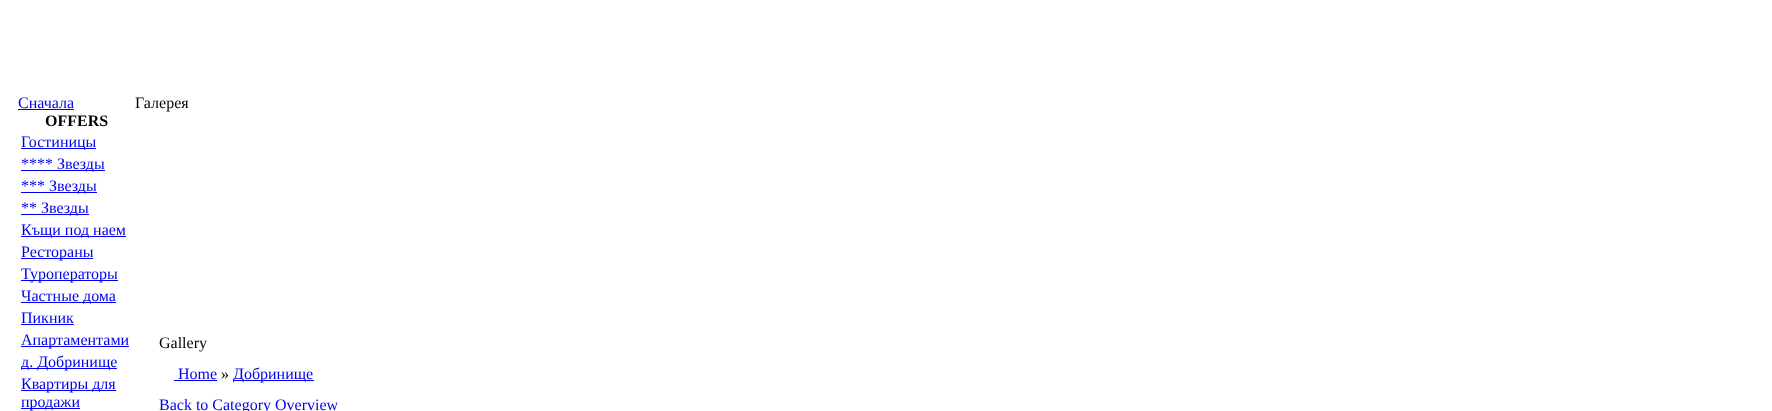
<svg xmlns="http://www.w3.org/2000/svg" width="1772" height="411">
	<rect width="100%" height="100%" fill="#FFFFFF" />
	<text x="18" y="108" font-family="Liberation Serif" font-size="16" fill="#0000EE">Сначала</text>
	<rect x="18" y="109" width="56" height="1" fill="#0000EE" />
	<text x="135" y="108" font-family="Liberation Serif" font-size="16" fill="#000000">Галерея</text>
	<text x="45" y="126" font-family="Liberation Serif" font-size="16" font-weight="700" fill="#000000">OFFERS</text>
	<rect x="21" y="148" width="75" height="1" fill="#0000EE" />
	<text x="21" y="147" font-family="Liberation Serif" font-size="16" fill="#0000EE">Гостиницы</text>
	<rect x="21" y="170" width="84" height="1" fill="#0000EE" />
	<text x="21" y="169" font-family="Liberation Serif" font-size="16" fill="#0000EE">**** Звезды</text>
	<rect x="21" y="192" width="76" height="1" fill="#0000EE" />
	<text x="21" y="191" font-family="Liberation Serif" font-size="16" fill="#0000EE">*** Звезды</text>
	<rect x="21" y="214" width="68" height="1" fill="#0000EE" />
	<text x="21" y="213" font-family="Liberation Serif" font-size="16" fill="#0000EE">** Звезды</text>
	<rect x="21" y="236" width="105" height="1" fill="#0000EE" />
	<text x="21" y="235" font-family="Liberation Serif" font-size="16" fill="#0000EE">Къщи под наем</text>
	<rect x="21" y="258" width="72" height="1" fill="#0000EE" />
	<text x="21" y="257" font-family="Liberation Serif" font-size="16" fill="#0000EE">Рестораны</text>
	<rect x="21" y="280" width="97" height="1" fill="#0000EE" />
	<text x="21" y="279" font-family="Liberation Serif" font-size="16" fill="#0000EE">Туроператоры</text>
	<rect x="21" y="302" width="95" height="1" fill="#0000EE" />
	<g font-family="Liberation Serif" font-size="16" fill="#0000EE">
		<text x="21" y="301">Частные дома</text>
		<text x="21" y="323">Пикник</text>
	</g>
	<rect x="21" y="324" width="53" height="1" fill="#0000EE" />
	<rect x="21" y="346" width="108" height="1" fill="#0000EE" />
	<text x="21" y="345" font-family="Liberation Serif" font-size="16" fill="#0000EE">Aпартаментами</text>
	<rect x="21" y="368" width="96" height="1" fill="#0000EE" />
	<text x="21" y="367" font-family="Liberation Serif" font-size="16" fill="#0000EE">д. Добринище</text>
	<rect x="21" y="390" width="95" height="1" fill="#0000EE" />
	<text x="21" y="389" font-family="Liberation Serif" font-size="16" fill="#0000EE">Квартиры для</text>
	<rect x="21" y="408" width="59" height="1" fill="#0000EE" />
	<text x="21" y="407" font-family="Liberation Serif" font-size="16" fill="#0000EE">продажи</text>
	<text x="159" y="348" font-family="Liberation Serif" font-size="16" fill="#000000">Gallery</text>
	<text x="178" y="379" font-family="Liberation Serif" font-size="16" fill="#0000EE">Home</text>
	<text x="221" y="379" font-family="Liberation Serif" font-size="16" fill="#000000">»</text>
	<rect x="233" y="380" width="81" height="1" fill="#0000EE" />
	<text x="233" y="379" font-family="Liberation Serif" font-size="16" fill="#0000EE">Добринище</text>
	<rect x="174" y="380" width="43" height="1" fill="#0000EE" />
	<text x="159" y="410" font-family="Liberation Serif" font-size="16" fill="#0000EE">Back to Category Overview</text>
</svg>
